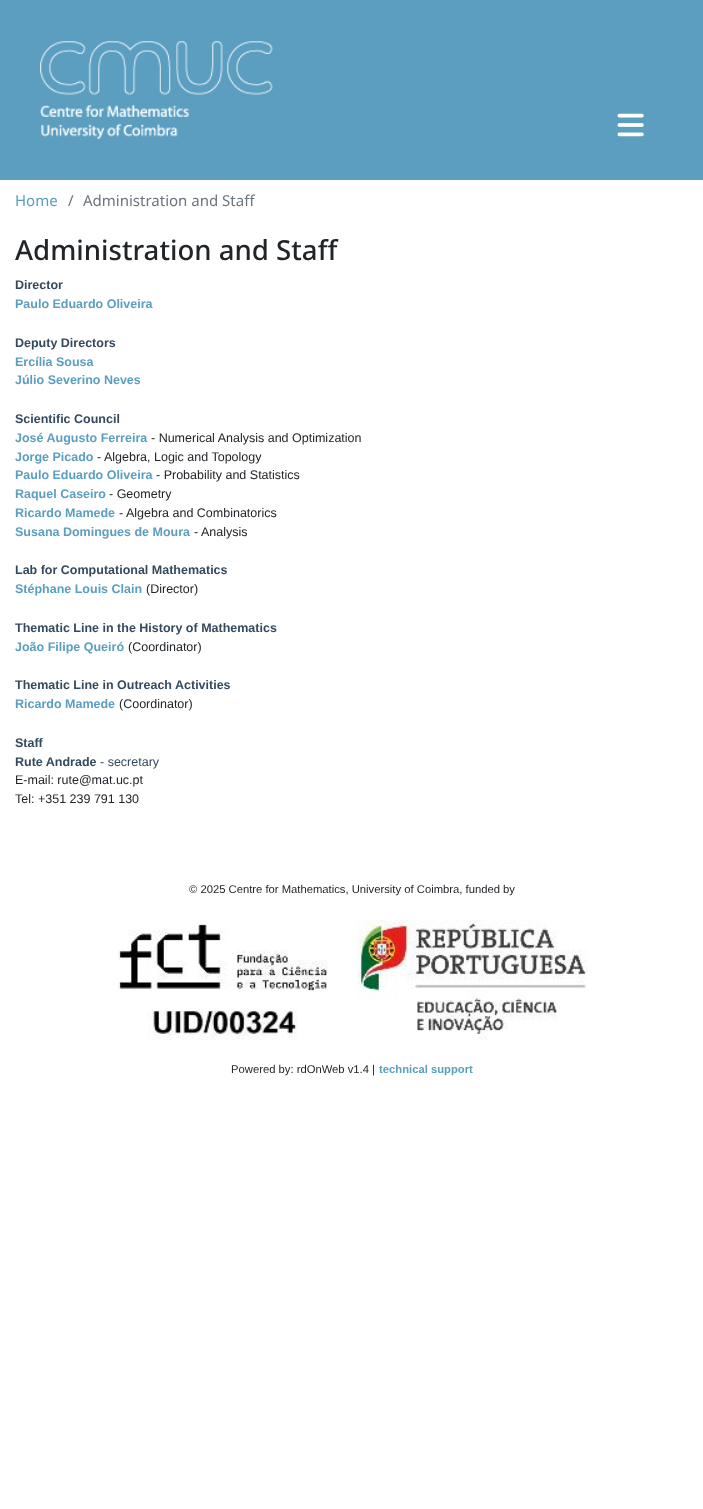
<svg xmlns="http://www.w3.org/2000/svg" width="703" height="1509">
	<rect width="100%" height="100%" fill="#FFFFFF" />
	<rect x="0" y="0" width="703" height="180" fill="#5B9EBF" />
	<image x="40" y="41" width="233" height="98" href="assets/img1.png" />
	<image x="617" y="113" width="27" height="24" href="assets/img2.png" />
	<text x="15" y="206" font-family="Noto Sans" font-size="15" fill="#5B9EBF">Home</text>
	<g font-family="Noto Sans" font-size="15" fill="#6C757D">
		<text x="68" y="206">/</text>
		<text x="83" y="206">Administration and Staff</text>
	</g>
	<text x="15" y="260" font-family="Noto Sans" font-size="27.6" font-weight="500" fill="#212529">Administration and Staff</text>
	<text x="15" y="289" font-family="Liberation Sans" font-size="12.5" font-weight="700" fill="#34495E">Director</text>
	<text x="15" y="308" font-family="Liberation Sans" font-size="12.5" font-weight="700" fill="#5B9EBF">Paulo Eduardo Oliveira</text>
	<text x="15" y="347" font-family="Liberation Sans" font-size="12.5" font-weight="700" fill="#34495E">Deputy Directors</text>
	<g font-family="Liberation Sans" font-size="12.5" font-weight="700" fill="#5B9EBF">
		<text x="15" y="366">Ercília Sousa</text>
		<text x="15" y="384">Júlio Severino Neves</text>
	</g>
	<text x="15" y="423" font-family="Liberation Sans" font-size="12.5" font-weight="700" fill="#34495E">Scientific Council</text>
	<text x="15" y="442" font-family="Liberation Sans" font-size="12.5" font-weight="700" fill="#5B9EBF">José Augusto Ferreira</text>
	<text x="151" y="442" font-family="Liberation Sans" font-size="12.5" fill="#212529">- Numerical Analysis and Optimization</text>
	<text x="15" y="461" font-family="Liberation Sans" font-size="12.5" font-weight="700" fill="#5B9EBF">Jorge Picado</text>
	<text x="97" y="461" font-family="Liberation Sans" font-size="12.5" fill="#212529">- Algebra, Logic and Topology</text>
	<text x="15" y="479" font-family="Liberation Sans" font-size="12.5" font-weight="700" fill="#5B9EBF">Paulo Eduardo Oliveira</text>
	<text x="156" y="479" font-family="Liberation Sans" font-size="12.5" fill="#212529">- Probability and Statistics</text>
	<text x="15" y="498" font-family="Liberation Sans" font-size="12.5" font-weight="700" fill="#5B9EBF">Raquel Caseiro</text>
	<text x="109" y="498" font-family="Liberation Sans" font-size="12.5" fill="#212529">- Geometry</text>
	<text x="15" y="517" font-family="Liberation Sans" font-size="12.5" font-weight="700" fill="#5B9EBF">Ricardo Mamede</text>
	<text x="119" y="517" font-family="Liberation Sans" font-size="12.5" fill="#212529">- Algebra and Combinatorics</text>
	<text x="15" y="536" font-family="Liberation Sans" font-size="12.5" font-weight="700" fill="#5B9EBF">Susana Domingues de Moura</text>
	<text x="194" y="536" font-family="Liberation Sans" font-size="12.5" fill="#212529">- Analysis</text>
	<text x="15" y="574" font-family="Liberation Sans" font-size="12.5" font-weight="700" fill="#34495E">Lab for Computational Mathematics</text>
	<text x="15" y="593" font-family="Liberation Sans" font-size="12.5" font-weight="700" fill="#5B9EBF">Stéphane Louis Clain</text>
	<text x="146" y="593" font-family="Liberation Sans" font-size="12.5" fill="#212529">(Director)</text>
	<text x="15" y="632" font-family="Liberation Sans" font-size="12.5" font-weight="700" fill="#34495E">Thematic Line in the History of Mathematics</text>
	<text x="15" y="651" font-family="Liberation Sans" font-size="12.5" font-weight="700" fill="#5B9EBF">João Filipe Queiró</text>
	<text x="128" y="651" font-family="Liberation Sans" font-size="12.5" fill="#212529">(Coordinator)</text>
	<text x="15" y="689" font-family="Liberation Sans" font-size="12.5" font-weight="700" fill="#34495E">Thematic Line in Outreach Activities</text>
	<text x="15" y="708" font-family="Liberation Sans" font-size="12.5" font-weight="700" fill="#5B9EBF">Ricardo Mamede</text>
	<text x="119" y="708" font-family="Liberation Sans" font-size="12.5" fill="#212529">(Coordinator)</text>
	<g font-family="Liberation Sans" font-size="12.5" font-weight="700" fill="#34495E">
		<text x="15" y="747">Staff</text>
		<text x="15" y="766">Rute Andrade</text>
	</g>
	<text x="100" y="766" font-family="Liberation Sans" font-size="12.5" fill="#34495E">- secretary</text>
	<g font-family="Liberation Sans" font-size="12.5" fill="#212529">
		<text x="15" y="784">E-mail: rute@mat.uc.pt</text>
		<text x="15" y="803">Tel: +351 239 791 130</text>
	</g>
	<text x="189" y="893" font-family="Liberation Sans" font-size="11.25" fill="#212529">© 2025 Centre for Mathematics, University of Coimbra, funded by</text>
	<image x="117" y="919" width="471" height="121" href="assets/img3.png" />
	<text x="231" y="1073" font-family="Liberation Sans" font-size="11.25" fill="#212529">Powered by: rdOnWeb v1.4 |</text>
	<text x="379" y="1073" font-family="Liberation Sans" font-size="11.25" font-weight="700" fill="#5B9EBF">technical support</text>
</svg>
